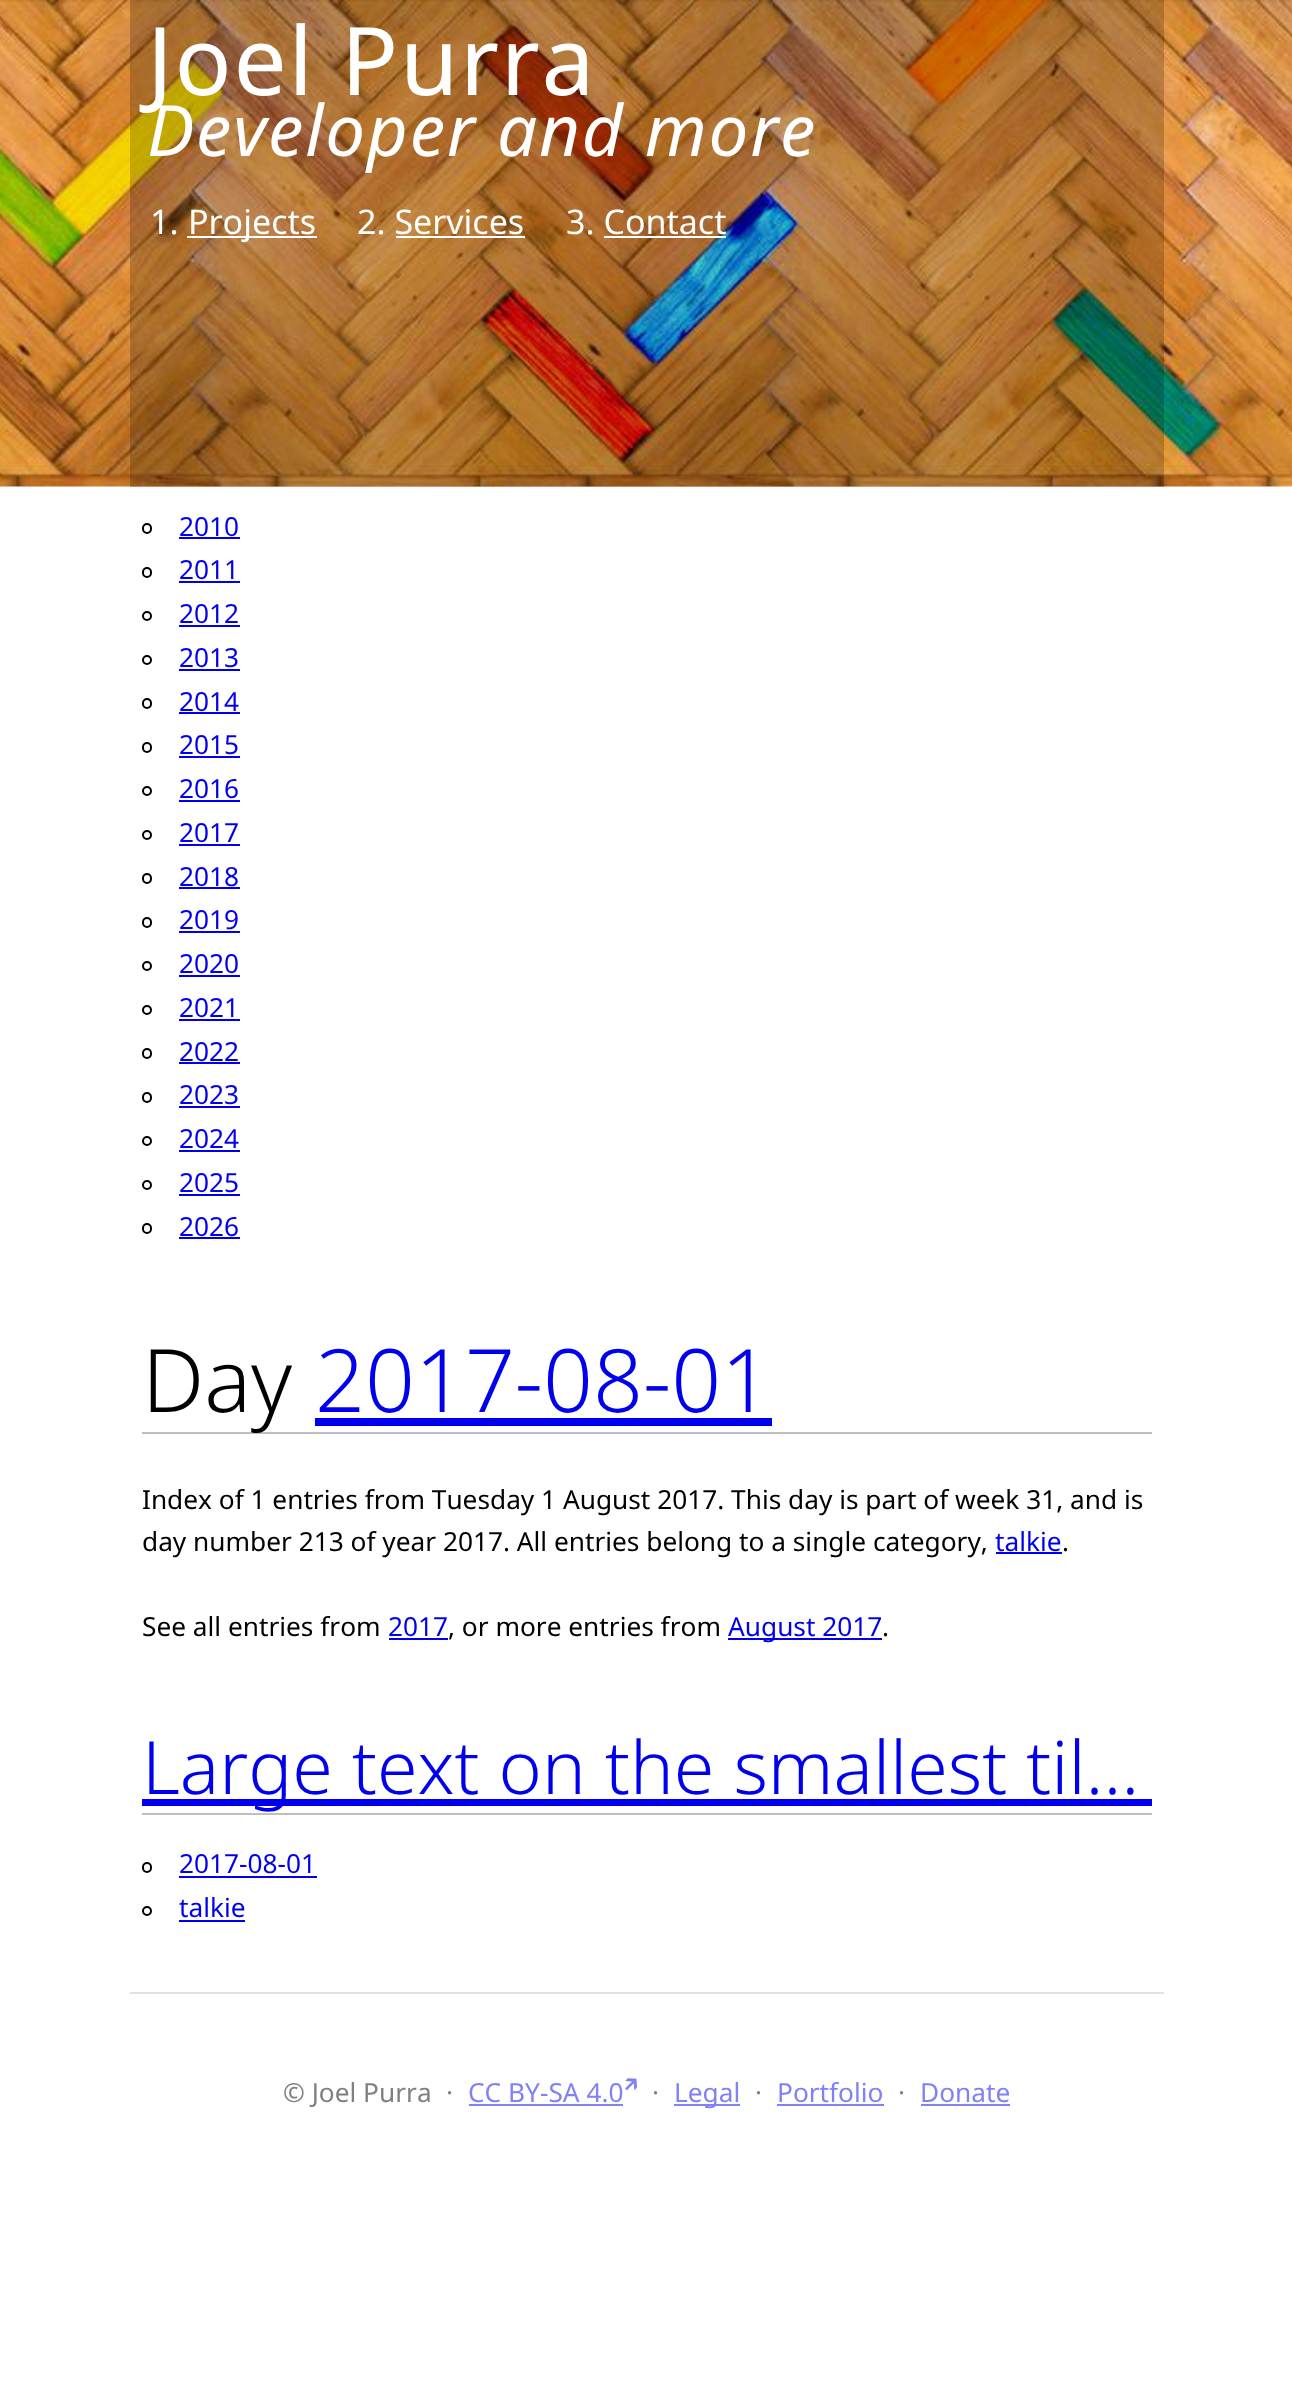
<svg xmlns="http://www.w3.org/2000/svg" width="1292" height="2403">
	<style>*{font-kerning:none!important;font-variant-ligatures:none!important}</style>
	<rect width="100%" height="100%" fill="#FFFFFF" />
	<image x="0" y="0" width="1292" height="487" href="assets/img1.png" />
	<rect x="130" y="0" width="1034" height="487" fill="#000000" fill-opacity="0.2" />
	<text x="147" y="95" font-family="Noto Sans" font-size="94.5" letter-spacing="1.75" fill="#FFFFFF">Joel Purra</text>
	<text x="147" y="156" font-family="Noto Sans" font-size="70.9" font-style="italic" letter-spacing="1.75" fill="#FFFFFF">Developer and more</text>
	<text x="150" y="234" font-family="Noto Sans" font-size="34" fill="#FFFFFF">1.</text>
	<rect x="187" y="236" width="130" height="2" fill="#FFFFFF" />
	<g font-family="Noto Sans" font-size="34" fill="#FFFFFF">
		<text x="188" y="234">Projects</text>
		<text x="357" y="234">2. Services</text>
	</g>
	<rect x="396" y="236" width="129" height="2" fill="#FFFFFF" />
	<text x="566" y="234" font-family="Noto Sans" font-size="34" fill="#FFFFFF">3. Contact</text>
	<rect x="604" y="236" width="122" height="2" fill="#FFFFFF" />
	<rect x="143" y="524" width="8" height="9" rx="4" fill="none" stroke="#000000" stroke-width="2" />
	<text x="179" y="536" font-family="Noto Sans" font-size="26.25" fill="#0000EE">2010</text>
	<rect x="179" y="537" width="61" height="2" fill="#0000EE" />
	<rect x="143" y="568" width="8" height="9" rx="4" fill="none" stroke="#000000" stroke-width="2" />
	<text x="179" y="579" font-family="Noto Sans" font-size="26.25" fill="#0000EE">2011</text>
	<rect x="179" y="581" width="61" height="2" fill="#0000EE" />
	<circle cx="147" cy="616" r="4" fill="none" stroke="#000000" stroke-width="2" />
	<text x="179" y="623" font-family="Noto Sans" font-size="26.25" fill="#0000EE">2012</text>
	<rect x="179" y="625" width="61" height="2" fill="#0000EE" />
	<circle cx="147" cy="660" r="4" fill="none" stroke="#000000" stroke-width="2" />
	<text x="179" y="667" font-family="Noto Sans" font-size="26.25" fill="#0000EE">2013</text>
	<rect x="179" y="669" width="61" height="2" fill="#0000EE" />
	<rect x="143" y="699" width="8" height="9" rx="4" fill="none" stroke="#000000" stroke-width="2" />
	<text x="179" y="711" font-family="Noto Sans" font-size="26.25" fill="#0000EE">2014</text>
	<rect x="179" y="712" width="61" height="2" fill="#0000EE" />
	<rect x="143" y="743" width="8" height="9" rx="4" fill="none" stroke="#000000" stroke-width="2" />
	<text x="179" y="754" font-family="Noto Sans" font-size="26.25" fill="#0000EE">2015</text>
	<rect x="179" y="756" width="61" height="2" fill="#0000EE" />
	<circle cx="147" cy="791" r="4" fill="none" stroke="#000000" stroke-width="2" />
	<text x="179" y="798" font-family="Noto Sans" font-size="26.25" fill="#0000EE">2016</text>
	<rect x="179" y="800" width="61" height="2" fill="#0000EE" />
	<circle cx="147" cy="835" r="4" fill="none" stroke="#000000" stroke-width="2" />
	<text x="179" y="842" font-family="Noto Sans" font-size="26.25" fill="#0000EE">2017</text>
	<rect x="179" y="844" width="61" height="2" fill="#0000EE" />
	<rect x="143" y="874" width="8" height="9" rx="4" fill="none" stroke="#000000" stroke-width="2" />
	<text x="179" y="886" font-family="Noto Sans" font-size="26.25" fill="#0000EE">2018</text>
	<rect x="179" y="887" width="61" height="2" fill="#0000EE" />
	<rect x="143" y="918" width="8" height="9" rx="4" fill="none" stroke="#000000" stroke-width="2" />
	<text x="179" y="929" font-family="Noto Sans" font-size="26.25" fill="#0000EE">2019</text>
	<rect x="179" y="931" width="61" height="2" fill="#0000EE" />
	<circle cx="147" cy="966" r="4" fill="none" stroke="#000000" stroke-width="2" />
	<text x="179" y="973" font-family="Noto Sans" font-size="26.25" fill="#0000EE">2020</text>
	<rect x="179" y="975" width="61" height="2" fill="#0000EE" />
	<circle cx="147" cy="1010" r="4" fill="none" stroke="#000000" stroke-width="2" />
	<text x="179" y="1017" font-family="Noto Sans" font-size="26.25" fill="#0000EE">2021</text>
	<rect x="179" y="1019" width="61" height="2" fill="#0000EE" />
	<rect x="143" y="1049" width="8" height="9" rx="4" fill="none" stroke="#000000" stroke-width="2" />
	<text x="179" y="1061" font-family="Noto Sans" font-size="26.25" fill="#0000EE">2022</text>
	<rect x="179" y="1062" width="61" height="2" fill="#0000EE" />
	<rect x="143" y="1093" width="8" height="9" rx="4" fill="none" stroke="#000000" stroke-width="2" />
	<text x="179" y="1104" font-family="Noto Sans" font-size="26.25" fill="#0000EE">2023</text>
	<rect x="179" y="1106" width="61" height="2" fill="#0000EE" />
	<circle cx="147" cy="1141" r="4" fill="none" stroke="#000000" stroke-width="2" />
	<text x="179" y="1148" font-family="Noto Sans" font-size="26.25" fill="#0000EE">2024</text>
	<rect x="179" y="1150" width="61" height="2" fill="#0000EE" />
	<circle cx="147" cy="1185" r="4" fill="none" stroke="#000000" stroke-width="2" />
	<text x="179" y="1192" font-family="Noto Sans" font-size="26.25" fill="#0000EE">2025</text>
	<rect x="179" y="1194" width="61" height="2" fill="#0000EE" />
	<rect x="143" y="1224" width="8" height="9" rx="4" fill="none" stroke="#000000" stroke-width="2" />
	<text x="179" y="1236" font-family="Noto Sans" font-size="26.25" fill="#0000EE">2026</text>
	<rect x="179" y="1237" width="61" height="2" fill="#0000EE" />
	<rect x="142" y="1432" width="1010" height="2" fill="#BFBFBF" />
	<text x="142" y="1412" font-family="Noto Sans" font-size="87.5" font-weight="300" fill="#000000">Day</text>
	<text x="315" y="1412" font-family="Noto Sans" font-size="87.5" font-weight="300" fill="#0000EE">2017-08-01</text>
	<rect x="315" y="1418" width="457" height="8" fill="#0000EE" />
	<g font-family="Noto Sans" font-size="26.25" fill="#000000">
		<text x="142" y="1509">Index of 1 entries from Tuesday 1 August 2017. This day is part of week 31, and is</text>
		<text x="142" y="1551">day number 213 of year 2017. All entries belong to a single category,</text>
	</g>
	<text x="995" y="1551" font-family="Noto Sans" font-size="26.25" fill="#0000EE">talkie</text>
	<rect x="996" y="1552" width="66" height="2" fill="#0000EE" />
	<g font-family="Noto Sans" font-size="26.25" fill="#000000">
		<text x="1062" y="1551">.</text>
		<text x="142" y="1636">See all entries from</text>
	</g>
	<text x="388" y="1636" font-family="Noto Sans" font-size="26.25" fill="#0000EE">2017</text>
	<rect x="389" y="1638" width="59" height="2" fill="#0000EE" />
	<text x="448" y="1636" font-family="Noto Sans" font-size="26.25" fill="#000000">, or more entries from</text>
	<rect x="728" y="1638" width="154" height="2" fill="#0000EE" />
	<text x="728" y="1636" font-family="Noto Sans" font-size="26.25" fill="#0000EE">August 2017</text>
	<text x="882" y="1636" font-family="Noto Sans" font-size="26.25" fill="#000000">.</text>
	<rect x="142" y="1813" width="1010" height="2" fill="#BFBFBF" />
	<rect x="142" y="1799" width="1010" height="7" fill="#0000EE" />
	<text x="142" y="1794" font-family="Noto Sans" font-size="73.5" font-weight="300" fill="#0000EE">Large text on the smallest til…</text>
	<rect x="143" y="1863" width="8" height="9" rx="4" fill="none" stroke="#000000" stroke-width="2" />
	<text x="179" y="1873" font-family="Noto Sans" font-size="26.25" fill="#0000EE">2017-08-01</text>
	<rect x="179" y="1876" width="138" height="2" fill="#0000EE" />
	<circle cx="147" cy="1911" r="4" fill="none" stroke="#000000" stroke-width="2" />
	<text x="179" y="1917" font-family="Noto Sans" font-size="26.25" fill="#0000EE">talkie</text>
	<rect x="179" y="1920" width="66" height="2" fill="#0000EE" />
	<rect x="130" y="1992" width="1034" height="2" fill="#E1E1E1" />
	<g font-family="Noto Sans" font-size="26.25" fill="#808080">
		<text x="283" y="2102">© Joel Purra</text>
		<text x="446" y="2102">·</text>
	</g>
	<text x="468" y="2102" font-family="Noto Sans" font-size="26.25" fill="#8080F7">CC BY-SA 4.0</text>
	<rect x="469" y="2104" width="154" height="2" fill="#8080F7" />
	<text x="624" y="2091" font-family="'Noto Sans Symbols 2'" font-size="21" fill="#8080F7">🡵</text>
	<text x="652" y="2102" font-family="Noto Sans" font-size="26.25" fill="#808080">·</text>
	<rect x="674" y="2104" width="66" height="2" fill="#8080F7" />
	<text x="674" y="2102" font-family="Noto Sans" font-size="26.25" fill="#8080F7">Legal</text>
	<text x="755" y="2102" font-family="Noto Sans" font-size="26.25" fill="#808080">·</text>
	<text x="777" y="2102" font-family="Noto Sans" font-size="26.25" fill="#8080F7">Portfolio</text>
	<rect x="777" y="2104" width="107" height="2" fill="#8080F7" />
	<text x="898" y="2102" font-family="Noto Sans" font-size="26.25" fill="#808080">·</text>
	<text x="920" y="2102" font-family="Noto Sans" font-size="26.25" fill="#8080F7">Donate</text>
	<rect x="921" y="2104" width="89" height="2" fill="#8080F7" />
</svg>
